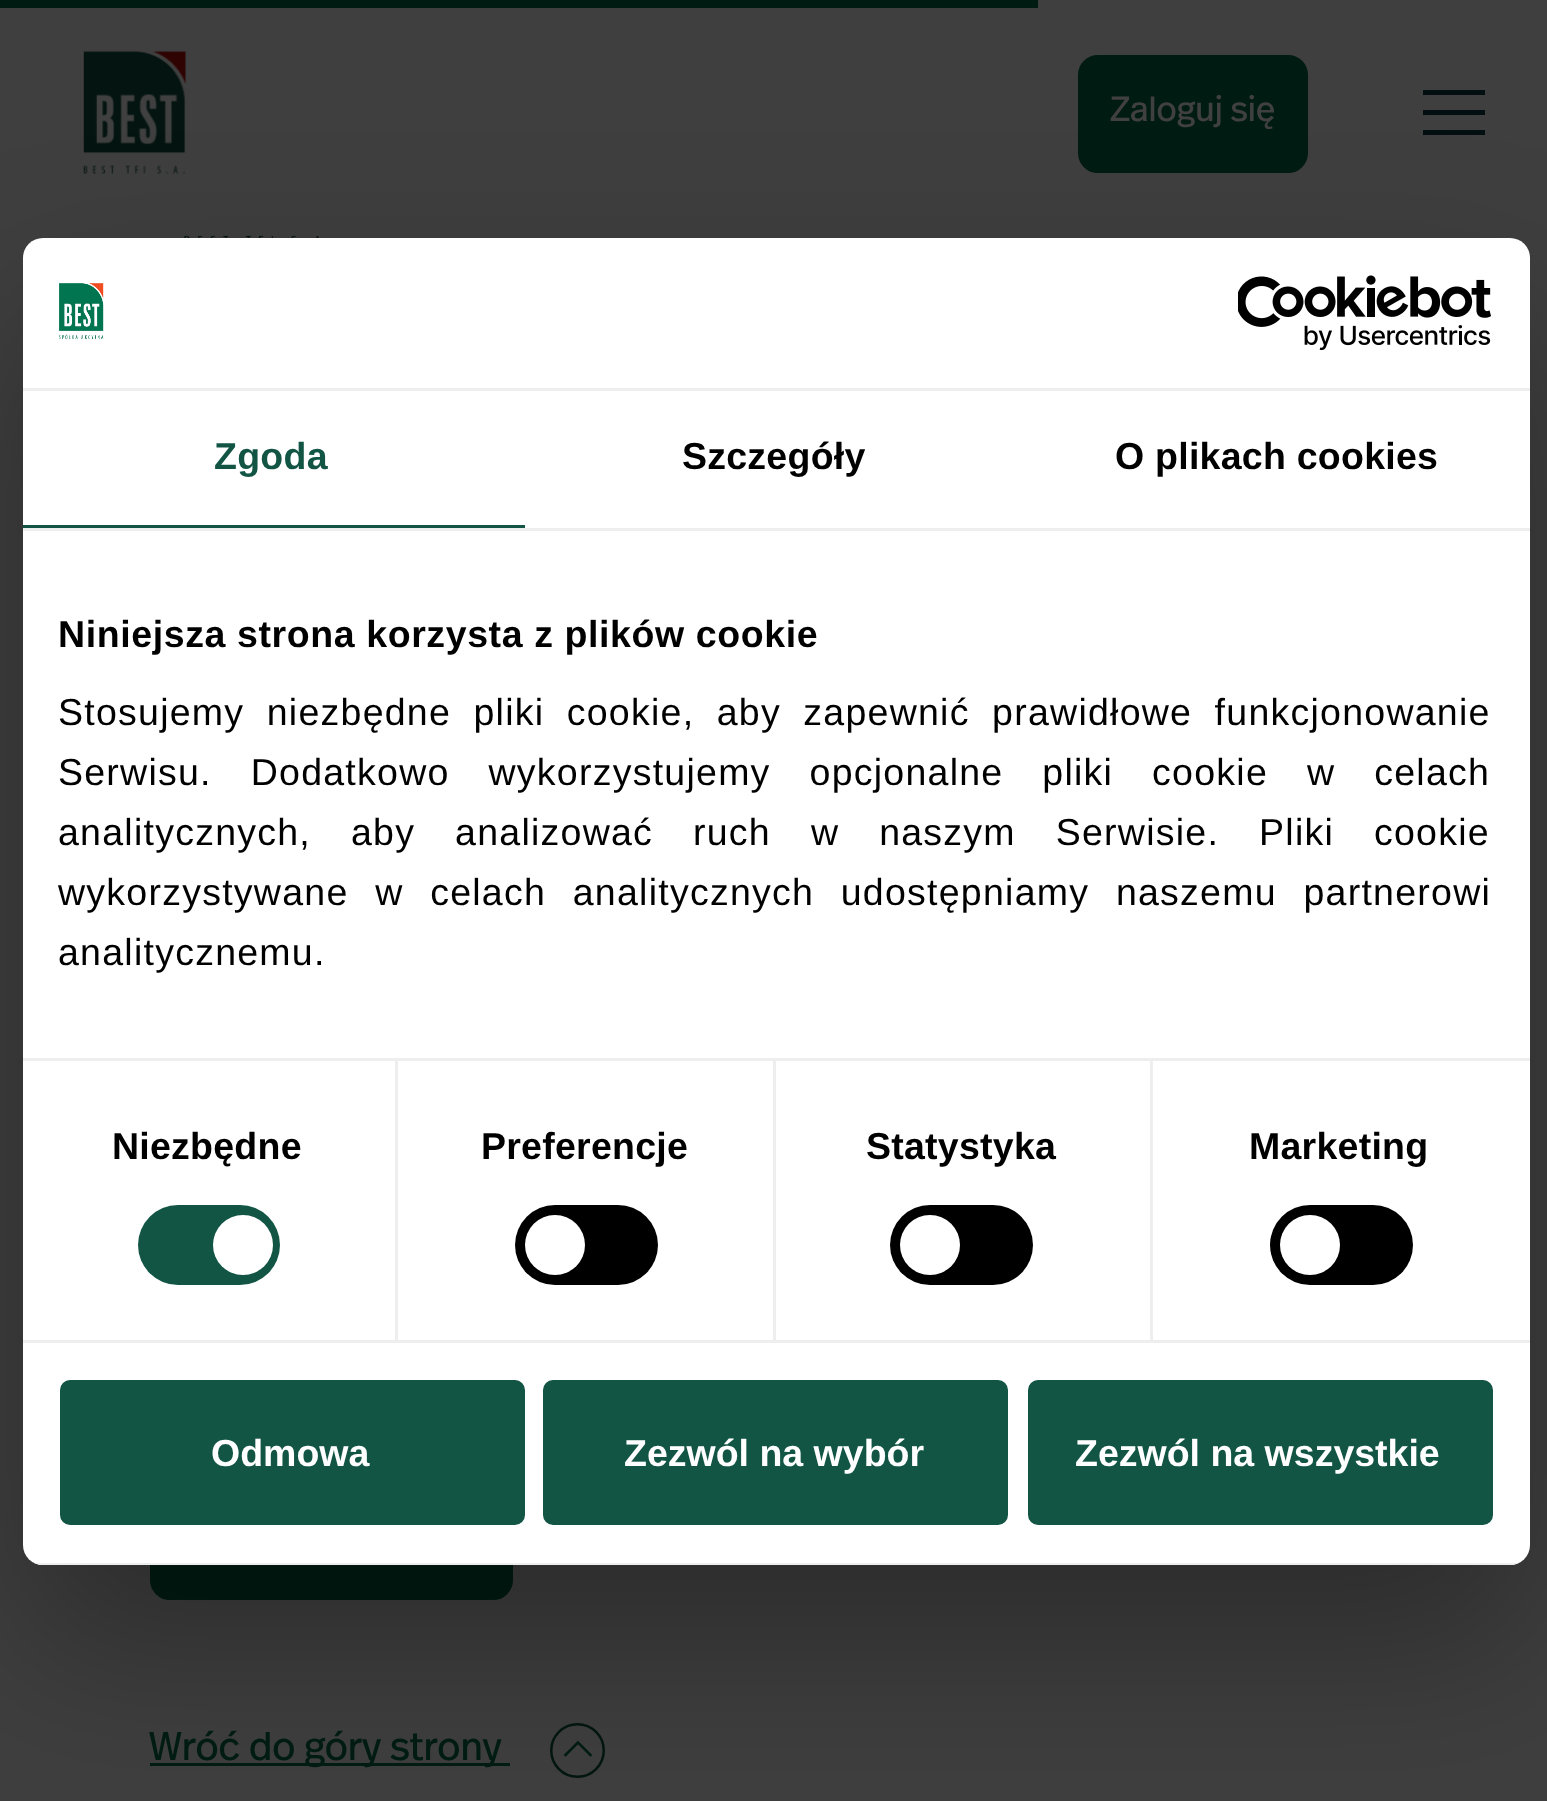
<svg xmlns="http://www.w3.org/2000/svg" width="1547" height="1801">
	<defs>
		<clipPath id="clip1"><path d="M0 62H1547V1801H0ZM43 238H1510C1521 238 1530 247 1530 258V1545C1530 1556 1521 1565 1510 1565H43C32 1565 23 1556 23 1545V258C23 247 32 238 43 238Z" clip-rule="evenodd" /></clipPath>
		<clipPath id="clip2"><rect x="23" y="238" width="1507" height="1327" rx="20" /></clipPath>
	</defs>
	<rect width="100%" height="100%" fill="#3F3F3F" />
	<rect x="0" y="0" width="1038" height="8" fill="#001C12" />
	<image x="83" y="50" width="104" height="124" href="assets/img1.png" />
	<rect x="1079.5" y="56.5" width="227" height="115" rx="18.5" fill="#001C12" stroke="#001C12" stroke-width="3" />
	<text x="1110" y="121" font-family="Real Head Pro" font-size="35" fill="#404040">Zaloguj się</text>
	<rect x="1423" y="90" width="62" height="5" fill="#030E10" />
	<rect x="1423" y="110" width="62" height="5" fill="#030E10" />
	<rect x="1423" y="130" width="62" height="5" fill="#030E10" />
	<image x="184" y="235" width="135" height="3" href="assets/img4.png" />
	<rect x="151.5" y="1484.5" width="360" height="114" rx="18.5" fill="#001C12" stroke="#001C12" stroke-width="3" />
	<rect x="150" y="1763" width="360" height="3" fill="#001C12" />
	<path d="M565.5 1755L578 1742.5M590.5 1755L578 1742.5" fill="none" stroke="#001C12" stroke-width="2.5" stroke-linecap="square" />
	<circle cx="577.5" cy="1750.5" r="26.25" fill="none" stroke="#03170F" stroke-width="2.5" />
	<g clip-path="url(#clip1)">
		<rect x="23" y="318" width="1507" height="1327" rx="20" fill="#000000" fill-opacity="0.3" filter="blur(85px)" />
	</g>
	<rect x="23" y="238" width="1507" height="1327" rx="20" fill="#FFFFFF" />
	<rect x="23" y="388" width="1507" height="3" fill="#EEEEEE" />
	<image x="59" y="283" width="45" height="57" href="assets/img2.png" />
	<image x="1238" y="275" width="253" height="75" href="assets/img3.png" />
	<rect x="23" y="528" width="1507" height="3" fill="#EEEEEE" />
	<rect x="23" y="525" width="502" height="3" fill="#125545" />
	<text x="214" y="469" font-family="Liberation Sans" font-size="37.5" font-weight="700" letter-spacing="0.25" fill="#125545">Zgoda</text>
	<g font-family="Liberation Sans" font-size="37.5" font-weight="700" letter-spacing="0.25" fill="#000000">
		<text x="682" y="469">Szczegóły</text>
		<text x="1115" y="469">O plikach cookies</text>
	</g>
	<rect x="395" y="1060" width="3" height="280" fill="#EEEEEE" />
	<rect x="773" y="1060" width="3" height="280" fill="#EEEEEE" />
	<rect x="1150" y="1060" width="3" height="280" fill="#EEEEEE" />
	<rect x="23" y="1058" width="1507" height="3" fill="#EEEEEE" />
	<text x="58" y="647" font-family="Liberation Sans" font-size="37.5" font-weight="700" letter-spacing="0.6" fill="#000000">Niniejsza strona korzysta z plików cookie</text>
	<g font-family="Liberation Sans" font-size="37.5" letter-spacing="1.25" fill="#000000">
		<text x="58" y="725" word-spacing="10.75">Stosujemy niezbędne pliki cookie, aby zapewnić prawidłowe funkcjonowanie</text>
		<text x="58" y="785" word-spacing="27.25">Serwisu. Dodatkowo wykorzystujemy opcjonalne pliki cookie w celach</text>
		<text x="58" y="845" word-spacing="28.25">analitycznych, aby analizować ruch w naszym Serwisie. Pliki cookie</text>
		<text x="58" y="905" word-spacing="15">wykorzystywane w celach analitycznych udostępniamy naszemu partnerowi</text>
		<text x="58" y="965">analitycznemu.</text>
	</g>
	<rect x="23" y="1340" width="1507" height="3" fill="#EEEEEE" />
	<text x="112" y="1159" font-family="Liberation Sans" font-size="37.5" font-weight="700" letter-spacing="0.25" fill="#000000">Niezbędne</text>
	<rect x="138" y="1205" width="142" height="80" rx="40" fill="#125545" />
	<circle cx="243" cy="1245" r="30" fill="#FFFFFF" />
	<text x="481" y="1159" font-family="Liberation Sans" font-size="37.5" font-weight="700" letter-spacing="0.25" fill="#000000">Preferencje</text>
	<rect x="515" y="1205" width="143" height="80" rx="40" fill="#000000" />
	<circle cx="555" cy="1245" r="30" fill="#FFFFFF" />
	<text x="866" y="1159" font-family="Liberation Sans" font-size="37.5" font-weight="700" letter-spacing="0.25" fill="#000000">Statystyka</text>
	<rect x="890" y="1205" width="143" height="80" rx="40" fill="#000000" />
	<circle cx="930" cy="1245" r="30" fill="#FFFFFF" />
	<text x="1249" y="1159" font-family="Liberation Sans" font-size="37.5" font-weight="700" letter-spacing="0.25" fill="#000000">Marketing</text>
	<rect x="1270" y="1205" width="143" height="80" rx="40" fill="#000000" />
	<circle cx="1310" cy="1245" r="30" fill="#FFFFFF" />
	<g clip-path="url(#clip2)">
		<rect x="34" y="1563" width="1485" height="2" fill="#EEEEEE" />
	</g>
	<rect x="62.5" y="1382.5" width="460" height="140" rx="7.5" fill="#125545" stroke="#125545" stroke-width="5" />
	<text x="211" y="1466" font-family="Liberation Sans" font-size="37.5" font-weight="700" fill="#FFFFFF">Odmowa</text>
	<rect x="545.5" y="1382.5" width="460" height="140" rx="7.5" fill="#125545" stroke="#125545" stroke-width="5" />
	<text x="624" y="1466" font-family="Liberation Sans" font-size="37.5" font-weight="700" fill="#FFFFFF">Zezwól na wybór</text>
	<rect x="1030.5" y="1382.5" width="460" height="140" rx="7.5" fill="#125545" stroke="#125545" stroke-width="5" />
	<text x="1075" y="1466" font-family="Liberation Sans" font-size="37.5" font-weight="700" fill="#FFFFFF">Zezwól na wszystkie</text>
	<text x="149" y="1760" font-family="Real Head Pro" font-size="40" fill="#001C12">Wróć do góry strony</text>
</svg>
